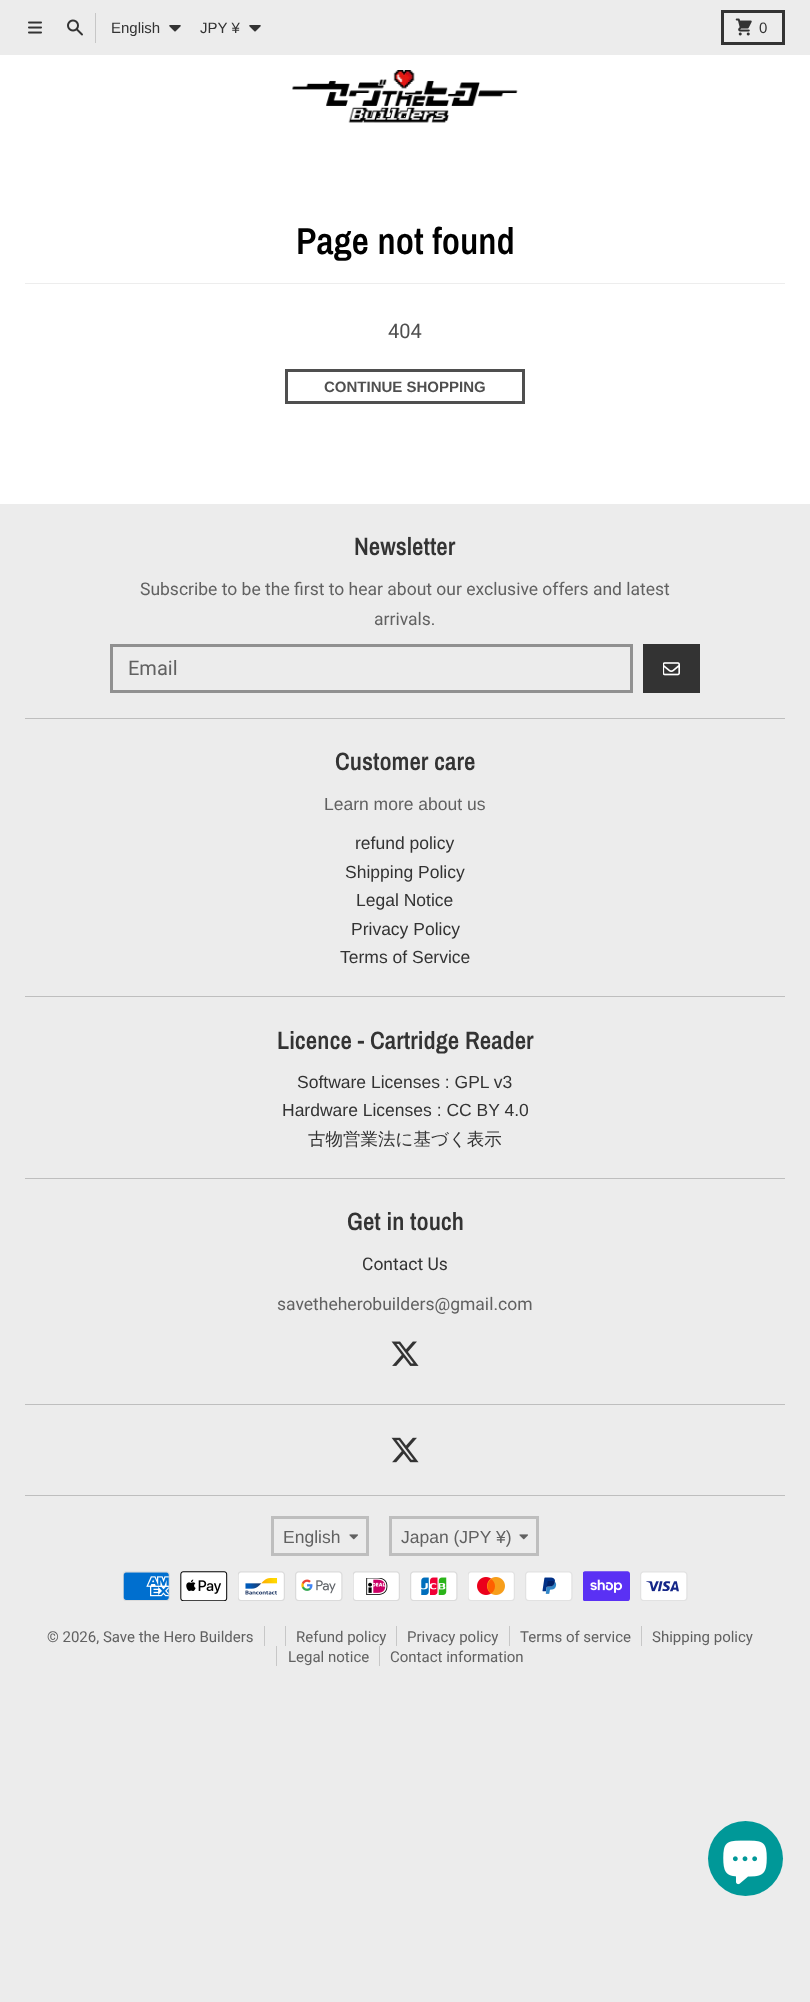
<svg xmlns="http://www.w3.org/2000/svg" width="810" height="2002">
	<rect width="100%" height="100%" fill="#ECECEC" />
	<image x="28" y="21" width="14" height="13" href="assets/img1.png" />
	<image x="67" y="19" width="16" height="17" href="assets/img2.png" />
	<rect x="95" y="13" width="1" height="30" fill="#C7C7C7" />
	<text x="111" y="33" font-family="Liberation Sans" font-size="15" fill="#333333">English</text>
	<image x="169" y="25" width="12" height="7" href="assets/img3.png" />
	<text x="200" y="33" font-family="Liberation Sans" font-size="15" fill="#333333">JPY ¥</text>
	<image x="249" y="25" width="12" height="7" href="assets/img3.png" />
	<rect x="722.5" y="11.5" width="61" height="32" fill="none" stroke="#333333" stroke-width="3" />
	<image x="735" y="18" width="17" height="18" href="assets/img4.png" />
	<text x="759" y="33" font-family="Liberation Sans" font-size="15" fill="#333333">0</text>
	<rect x="0" y="55" width="810" height="449" fill="#FFFFFF" />
	<image x="292" y="70" width="226" height="53" href="assets/img5.png" />
	<rect x="25" y="283" width="760" height="1" fill="#EDEDED" />
	<text x="296" y="254" font-family="Archivo Narrow" font-size="37.5" font-weight="600" fill="#000000">Page not found</text>
	<text x="388" y="338" font-family="Roboto" font-size="20" fill="#4F4F4F">404</text>
	<rect x="286.5" y="370.5" width="237" height="32" fill="none" stroke="#4F4F4F" stroke-width="3" />
	<text x="324" y="392" font-family="Liberation Sans" font-size="15" font-weight="700" fill="#4F4F4F">CONTINUE SHOPPING</text>
	<text x="354" y="555" font-family="Archivo Narrow" font-size="25" font-weight="600" fill="#333333">Newsletter</text>
	<g font-family="Roboto" font-size="17.5" fill="#616161">
		<text x="140" y="595">Subscribe to be the first to hear about our exclusive offers and latest</text>
		<text x="374" y="625">arrivals.</text>
	</g>
	<rect x="111.5" y="645.5" width="520" height="46" fill="none" stroke="#909090" stroke-width="3" />
	<text x="128" y="675" font-family="Roboto" font-size="20" fill="#616161">Email</text>
	<rect x="643" y="644" width="57" height="49" fill="#333333" />
	<image x="663" y="662" width="17" height="14" href="assets/img6.png" />
	<rect x="25" y="718" width="760" height="1" fill="#BEBEBE" />
	<text x="335" y="770" font-family="Archivo Narrow" font-size="25" font-weight="600" fill="#333333">Customer care</text>
	<text x="324" y="810" font-family="Liberation Sans" font-size="17.5" fill="#616161">Learn more about us</text>
	<g font-family="Liberation Sans" font-size="17.5" fill="#333333">
		<text x="355" y="849">refund policy</text>
		<text x="345" y="878">Shipping Policy</text>
		<text x="356" y="906">Legal Notice</text>
		<text x="351" y="935">Privacy Policy</text>
		<text x="340" y="963">Terms of Service</text>
	</g>
	<rect x="25" y="996" width="760" height="1" fill="#BEBEBE" />
	<text x="277" y="1049" font-family="Archivo Narrow" font-size="25" font-weight="600" fill="#333333">Licence - Cartridge Reader</text>
	<g font-family="Liberation Sans" font-size="17.5" fill="#333333">
		<text x="297" y="1088">Software Licenses : GPL v3</text>
		<text x="282" y="1116">Hardware Licenses : CC BY 4.0</text>
	</g>
	<text x="308" y="1145" font-family="WenQuanYi Zen Hei" font-size="17.5" font-weight="500" fill="#333333">古物営業法に基づく表示</text>
	<rect x="25" y="1178" width="760" height="1" fill="#BEBEBE" />
	<text x="347" y="1230" font-family="Archivo Narrow" font-size="25" font-weight="600" fill="#333333">Get in touch</text>
	<text x="362" y="1270" font-family="Roboto" font-size="17.5" fill="#333333">Contact Us</text>
	<text x="277" y="1310" font-family="Roboto" font-size="17.5" fill="#616161">savetheherobuilders@gmail.com</text>
	<image x="391" y="1341" width="28" height="25" href="assets/img7.png" />
	<rect x="25" y="1404" width="760" height="1" fill="#BEBEBE" />
	<image x="391" y="1437" width="28" height="26" href="assets/img8.png" />
	<rect x="25" y="1495" width="760" height="1" fill="#BEBEBE" />
	<rect x="272.5" y="1517.5" width="95" height="37" fill="none" stroke="#BEBEBE" stroke-width="3" />
	<text x="283" y="1543" font-family="Liberation Sans" font-size="17.5" fill="#616161">English</text>
	<image x="349" y="1534" width="9" height="6" href="assets/img9.png" />
	<rect x="390.5" y="1517.5" width="147" height="37" fill="none" stroke="#BEBEBE" stroke-width="3" />
	<text x="401" y="1543" font-family="Liberation Sans" font-size="17.5" fill="#616161">Japan (JPY ¥)</text>
	<image x="519" y="1534" width="9" height="6" href="assets/img9.png" />
	<image x="123" y="1571" width="47" height="30" href="assets/img10.png" />
	<image x="180" y="1571" width="48" height="30" href="assets/img11.png" />
	<image x="238" y="1571" width="47" height="30" href="assets/img12.png" />
	<image x="295" y="1571" width="48" height="30" href="assets/img13.png" />
	<image x="353" y="1571" width="47" height="30" href="assets/img14.png" />
	<image x="410" y="1571" width="48" height="30" href="assets/img15.png" />
	<image x="468" y="1571" width="47" height="30" href="assets/img16.png" />
	<image x="525" y="1571" width="48" height="30" href="assets/img17.png" />
	<image x="583" y="1571" width="47" height="30" href="assets/img18.png" />
	<image x="640" y="1571" width="48" height="30" href="assets/img19.png" />
	<text x="47" y="1642" font-family="Roboto" font-size="15" fill="#616161">© 2026, Save the Hero Builders</text>
	<rect x="264" y="1626" width="1" height="20" fill="#C7C7C7" />
	<rect x="285" y="1626" width="1" height="20" fill="#C7C7C7" />
	<text x="296" y="1642" font-family="Roboto" font-size="15" fill="#616161">Refund policy</text>
	<rect x="396" y="1626" width="1" height="20" fill="#C7C7C7" />
	<text x="407" y="1642" font-family="Roboto" font-size="15" fill="#616161">Privacy policy</text>
	<rect x="509" y="1626" width="1" height="20" fill="#C7C7C7" />
	<text x="520" y="1642" font-family="Roboto" font-size="15" fill="#616161">Terms of service</text>
	<rect x="641" y="1626" width="1" height="20" fill="#C7C7C7" />
	<text x="652" y="1642" font-family="Roboto" font-size="15" fill="#616161">Shipping policy</text>
	<rect x="276" y="1646" width="1" height="20" fill="#C7C7C7" />
	<text x="288" y="1662" font-family="Roboto" font-size="15" fill="#616161">Legal notice</text>
	<rect x="379" y="1646" width="1" height="20" fill="#C7C7C7" />
	<text x="390" y="1662" font-family="Roboto" font-size="15" fill="#616161">Contact information</text>
	<circle cx="745.5" cy="1858.5" r="37.5" fill="#009898" />
	<image x="723" y="1840" width="44" height="45" href="assets/img20.png" />
</svg>
